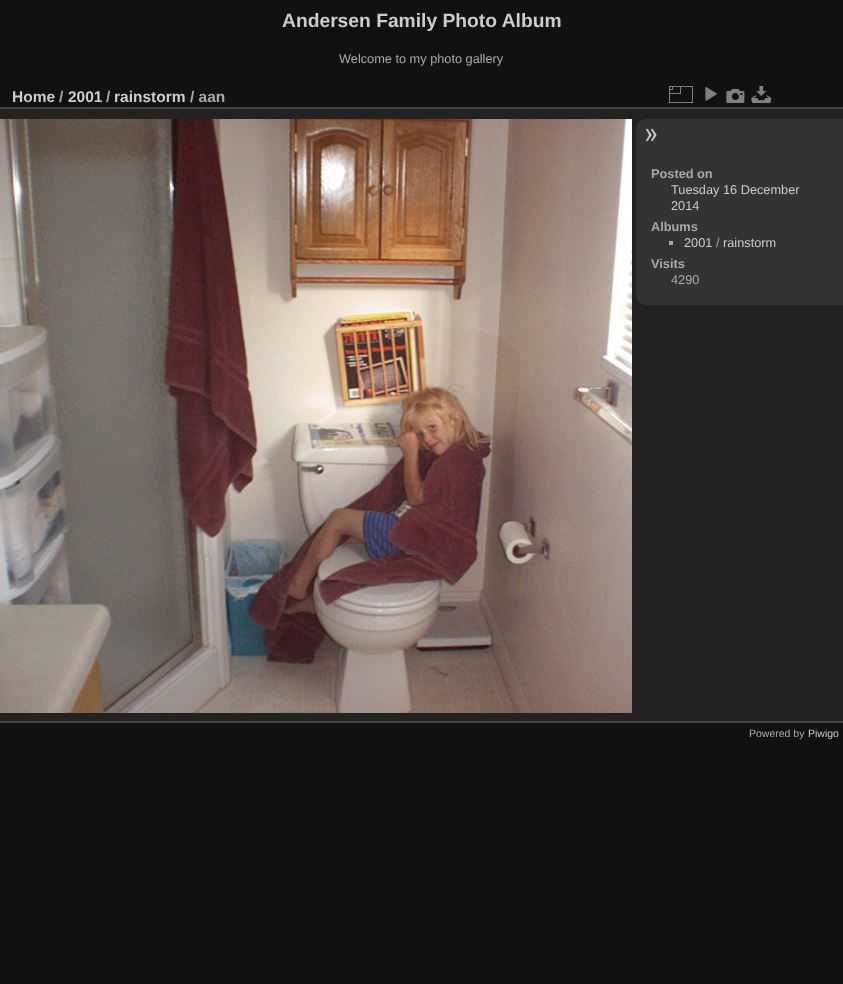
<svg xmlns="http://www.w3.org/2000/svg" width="843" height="984">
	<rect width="100%" height="100%" fill="#111111" />
	<text x="282" y="27" font-family="Liberation Sans" font-size="19.25" font-weight="700" fill="#CCCCCC">Andersen Family Photo Album</text>
	<text x="339" y="63" font-family="Liberation Sans" font-size="12.75" fill="#AAAAAA">Welcome to my photo gallery</text>
	<rect x="0" y="109" width="843" height="612" fill="#222222" />
	<rect x="0" y="721" width="843" height="2" fill="#444444" />
	<rect x="0" y="107" width="843" height="2" fill="#444444" />
	<text x="12" y="102" font-family="Liberation Sans" font-size="15.5" font-weight="700" fill="#CCCCCC">Home</text>
	<text x="59" y="102" font-family="Liberation Sans" font-size="15.5" font-weight="700" fill="#AAAAAA">/</text>
	<text x="68" y="102" font-family="Liberation Sans" font-size="15.5" font-weight="700" fill="#CCCCCC">2001</text>
	<text x="106" y="102" font-family="Liberation Sans" font-size="15.5" font-weight="700" fill="#AAAAAA">/</text>
	<text x="114" y="102" font-family="Liberation Sans" font-size="15.5" font-weight="700" fill="#CCCCCC">rainstorm</text>
	<text x="190" y="102" font-family="Liberation Sans" font-size="15.5" font-weight="700" fill="#AAAAAA">/ aan</text>
	<image x="669" y="86" width="24" height="17" href="assets/img1.png" />
	<image x="705" y="87" width="12" height="14" href="assets/img2.png" />
	<image x="726" y="89" width="19" height="14" href="assets/img3.png" />
	<image x="751" y="86" width="21" height="17" href="assets/img4.png" />
	<image x="0" y="119" width="632" height="594" href="assets/img5.png" />
	<path d="M646 119H843V305H646C640.5 305 636 300.5 636 295V129C636 123.5 640.5 119 646 119Z" fill="#333333" />
	<image x="645" y="129" width="12" height="12" href="assets/img6.png" />
	<text x="651" y="178" font-family="Liberation Sans" font-size="12.75" font-weight="700" fill="#AAAAAA">Posted on</text>
	<g font-family="Liberation Sans" font-size="12.75" fill="#CCCCCC">
		<text x="671" y="194">Tuesday 16 December</text>
		<text x="671" y="210">2014</text>
	</g>
	<text x="651" y="231" font-family="Liberation Sans" font-size="12.75" font-weight="700" fill="#AAAAAA">Albums</text>
	<rect x="669" y="241" width="4" height="4" fill="#AAAAAA" />
	<text x="684" y="247" font-family="Liberation Sans" font-size="12.75" fill="#CCCCCC">2001</text>
	<text x="716" y="247" font-family="Liberation Sans" font-size="12.75" fill="#AAAAAA">/</text>
	<text x="723" y="247" font-family="Liberation Sans" font-size="12.75" fill="#CCCCCC">rainstorm</text>
	<text x="651" y="268" font-family="Liberation Sans" font-size="12.75" font-weight="700" fill="#AAAAAA">Visits</text>
	<text x="671" y="284" font-family="Liberation Sans" font-size="12.75" fill="#AAAAAA">4290</text>
	<text x="749" y="737" font-family="Liberation Sans" font-size="10.5" fill="#AAAAAA">Powered by</text>
	<text x="808" y="737" font-family="Liberation Sans" font-size="10.5" fill="#CCCCCC">Piwigo</text>
</svg>
